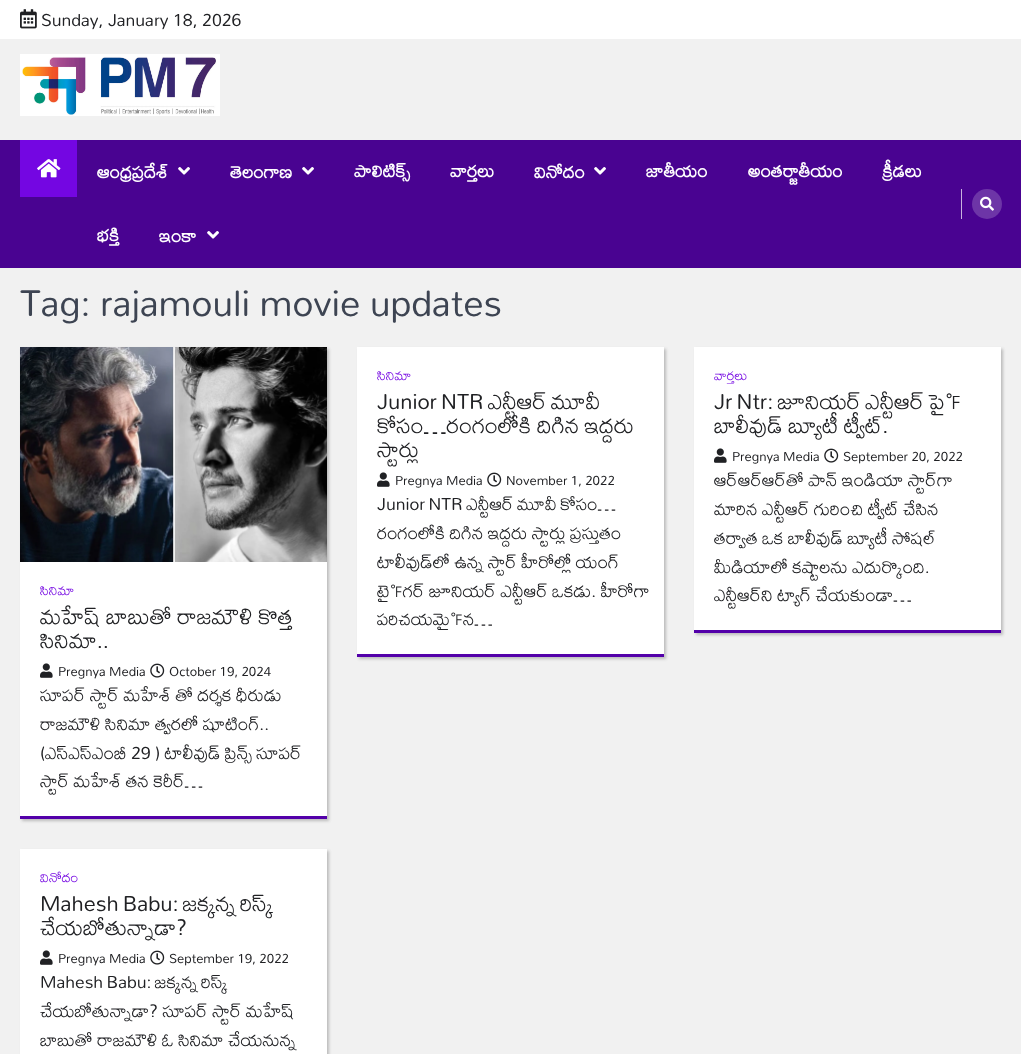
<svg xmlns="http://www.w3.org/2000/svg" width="1021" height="1054">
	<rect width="100%" height="100%" fill="#F1F1F1" />
	<rect x="0" y="0" width="1021" height="39" fill="#FFFFFF" />
	<image x="20" y="9" width="17" height="20" href="assets/img1.png" />
	<text x="41" y="26" font-family="Mallanna" font-size="19.25" fill="#202124">Sunday, January 18, 2026</text>
	<image x="20" y="54" width="200" height="62" href="assets/img2.png" />
	<rect x="0" y="140" width="1021" height="128" fill="#490391" />
	<rect x="20" y="140" width="57" height="57" fill="#7406E2" />
	<image x="37" y="159" width="24" height="19" href="assets/img3.png" />
	<text x="97" y="178" font-family="Mallanna" font-size="19.25" font-weight="700" fill="#FFFFFF">ఆంధ్రప్రదేశ్</text>
	<image x="178" y="167" width="12" height="8" href="assets/img4.png" />
	<text x="230" y="178" font-family="Mallanna" font-size="19.25" font-weight="700" fill="#FFFFFF">తెలంగాణ</text>
	<image x="302" y="167" width="12" height="8" href="assets/img4.png" />
	<g font-family="Mallanna" font-size="19.25" font-weight="700" fill="#FFFFFF">
		<text x="354" y="177">పాలిటిక్స్</text>
		<text x="450" y="177">వార్తలు</text>
		<text x="534" y="178">వినోదం</text>
	</g>
	<image x="594" y="167" width="12" height="8" href="assets/img4.png" />
	<g font-family="Mallanna" font-size="19.25" font-weight="700" fill="#FFFFFF">
		<text x="646" y="177">జాతీయం</text>
		<text x="748" y="177">అంతర్జాతీయం</text>
		<text x="882" y="177">క్రీడలు</text>
		<text x="97" y="241">భక్తి</text>
		<text x="159" y="242">ఇంకా</text>
	</g>
	<image x="207" y="231" width="12" height="8" href="assets/img4.png" />
	<rect x="961" y="189" width="1" height="30" fill="#C8B3DE" />
	<circle cx="987" cy="204" r="15" fill="#6D35A7" />
	<image x="980" y="196" width="14" height="15" href="assets/img5.png" />
	<text x="20" y="316" font-family="Mallanna" font-size="40.9" fill="#3D4452">Tag: rajamouli movie updates</text>
	<rect x="359" y="349" width="307" height="310" fill="#BBBBBB" filter="blur(1.5px)" />
	<rect x="357" y="347" width="307" height="307" fill="#FFFFFF" />
	<rect x="357" y="654" width="307" height="3" fill="#5300A9" />
	<text x="377" y="380" font-family="Mallanna" font-size="14.5" fill="#7406E2">సినిమా</text>
	<g font-family="Mallanna" font-size="24" fill="#202124">
		<text x="377" y="409" word-spacing="-1.5">Junior NTR ఎన్టీఆర్ మూవీ</text>
		<text x="377" y="433">కోసం…రంగంలోకి దిగిన ఇద్దరు</text>
		<text x="377" y="457">స్టార్లు</text>
	</g>
	<image x="377" y="472" width="13" height="15" href="assets/img6.png" />
	<text x="395" y="485" font-family="Mallanna" font-size="14.5" fill="#202124">Pregnya Media</text>
	<image x="487" y="472" width="15" height="15" href="assets/img7.png" />
	<text x="506" y="485" font-family="Mallanna" font-size="14.5" fill="#202124">November 1, 2022</text>
	<g font-family="Mallanna" font-size="19.25" fill="#202124">
		<text x="377" y="510" word-spacing="-1">Junior NTR ఎన్టీఆర్ మూవీ కోసం…</text>
		<text x="377" y="539">రంగంలోకి దిగిన ఇద్దరు స్టార్లు ప్రస్తుతం</text>
		<text x="377" y="568">టాలీవుడ్‌లో ఉన్న స్టార్ హీరోల్లో యంగ్</text>
		<text x="377" y="597">టైగర్ జూనియర్ ఎన్టీఆర్ ఒకడు. హీరోగా</text>
		<text x="377" y="625">పరిచయమైన…</text>
	</g>
	<rect x="696" y="349" width="307" height="286" fill="#BBBBBB" filter="blur(1.5px)" />
	<rect x="694" y="347" width="307" height="283" fill="#FFFFFF" />
	<rect x="694" y="630" width="307" height="3" fill="#5300A9" />
	<text x="714" y="380" font-family="Mallanna" font-size="14.5" fill="#7406E2">వార్తలు</text>
	<g font-family="Mallanna" font-size="24" fill="#202124">
		<text x="714" y="409" word-spacing="-1.5">Jr Ntr: జూనియర్ ఎన్టీఆర్ పై</text>
		<text x="714" y="433">బాలీవుడ్ బ్యూటీ ట్వీట్.</text>
	</g>
	<image x="714" y="448" width="13" height="15" href="assets/img6.png" />
	<text x="732" y="461" font-family="Mallanna" font-size="14.5" fill="#202124">Pregnya Media</text>
	<image x="824" y="448" width="15" height="15" href="assets/img7.png" />
	<text x="843" y="461" font-family="Mallanna" font-size="14.5" fill="#202124">September 20, 2022</text>
	<g font-family="Mallanna" font-size="19.25" fill="#202124">
		<text x="714" y="486">ఆర్‌ఆర్‌ఆర్‌తో పాన్ ఇండియా స్టార్‌గా</text>
		<text x="714" y="515">మారిన ఎన్టీఆర్ గురించి ట్వీట్ చేసిన</text>
		<text x="714" y="544">తర్వాత ఒక బాలీవుడ్ బ్యూటీ సోషల్</text>
		<text x="714" y="573">మీడియాలో కష్టాలను ఎదుర్కొంది.</text>
		<text x="714" y="601">ఎన్టీఆర్‌ని ట్యాగ్ చేయకుండా…</text>
	</g>
	<rect x="22" y="349" width="307" height="472" fill="#BBBBBB" filter="blur(1.5px)" />
	<rect x="20" y="562" width="307" height="254" fill="#FFFFFF" />
	<image x="20" y="347" width="307" height="215" href="assets/img8.png" />
	<rect x="20" y="816" width="307" height="3" fill="#5300A9" />
	<text x="40" y="595" font-family="Mallanna" font-size="14.5" fill="#7406E2">సినిమా</text>
	<g font-family="Mallanna" font-size="24" fill="#202124">
		<text x="40" y="624">మహేష్ బాబుతో రాజమౌళి కొత్త</text>
		<text x="40" y="648">సినిమా..</text>
	</g>
	<image x="40" y="663" width="13" height="15" href="assets/img6.png" />
	<text x="58" y="676" font-family="Mallanna" font-size="14.5" fill="#202124">Pregnya Media</text>
	<image x="150" y="663" width="15" height="15" href="assets/img7.png" />
	<text x="169" y="676" font-family="Mallanna" font-size="14.5" fill="#202124">October 19, 2024</text>
	<g font-family="Mallanna" font-size="19.25" fill="#202124">
		<text x="40" y="701">సూపర్ స్టార్ మహేశ్ తో దర్శక ధీరుడు</text>
		<text x="40" y="730">రాజమౌళి సినిమా త్వరలో షూటింగ్..</text>
		<text x="40" y="759">(ఎస్ఎస్ఎంబీ 29 ) టాలీవుడ్ ప్రిన్స్ సూపర్</text>
		<text x="40" y="787">స్టార్ మహేశ్ తన కెరీర్…</text>
	</g>
	<rect x="22" y="851" width="307" height="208" fill="#BBBBBB" filter="blur(1.5px)" />
	<rect x="20" y="849" width="307" height="205" fill="#FFFFFF" />
	<text x="40" y="882" font-family="Mallanna" font-size="14.5" fill="#7406E2">వినోదం</text>
	<g font-family="Mallanna" font-size="24" fill="#202124">
		<text x="40" y="911" word-spacing="-1.5">Mahesh Babu: జక్కన్న రిస్క్</text>
		<text x="40" y="935">చేయబోతున్నాడా?</text>
	</g>
	<image x="40" y="950" width="13" height="15" href="assets/img6.png" />
	<text x="58" y="963" font-family="Mallanna" font-size="14.5" fill="#202124">Pregnya Media</text>
	<image x="150" y="950" width="15" height="15" href="assets/img7.png" />
	<text x="169" y="963" font-family="Mallanna" font-size="14.5" fill="#202124">September 19, 2022</text>
	<g font-family="Mallanna" font-size="19.25" fill="#202124">
		<text x="40" y="988" word-spacing="-1">Mahesh Babu: జక్కన్న రిస్క్</text>
		<text x="40" y="1017">చేయబోతున్నాడా? సూపర్ స్టార్ మహేష్</text>
		<text x="40" y="1046">బాబుతో రాజమౌళి ఓ సినిమా చేయనున్న</text>
	</g>
</svg>
